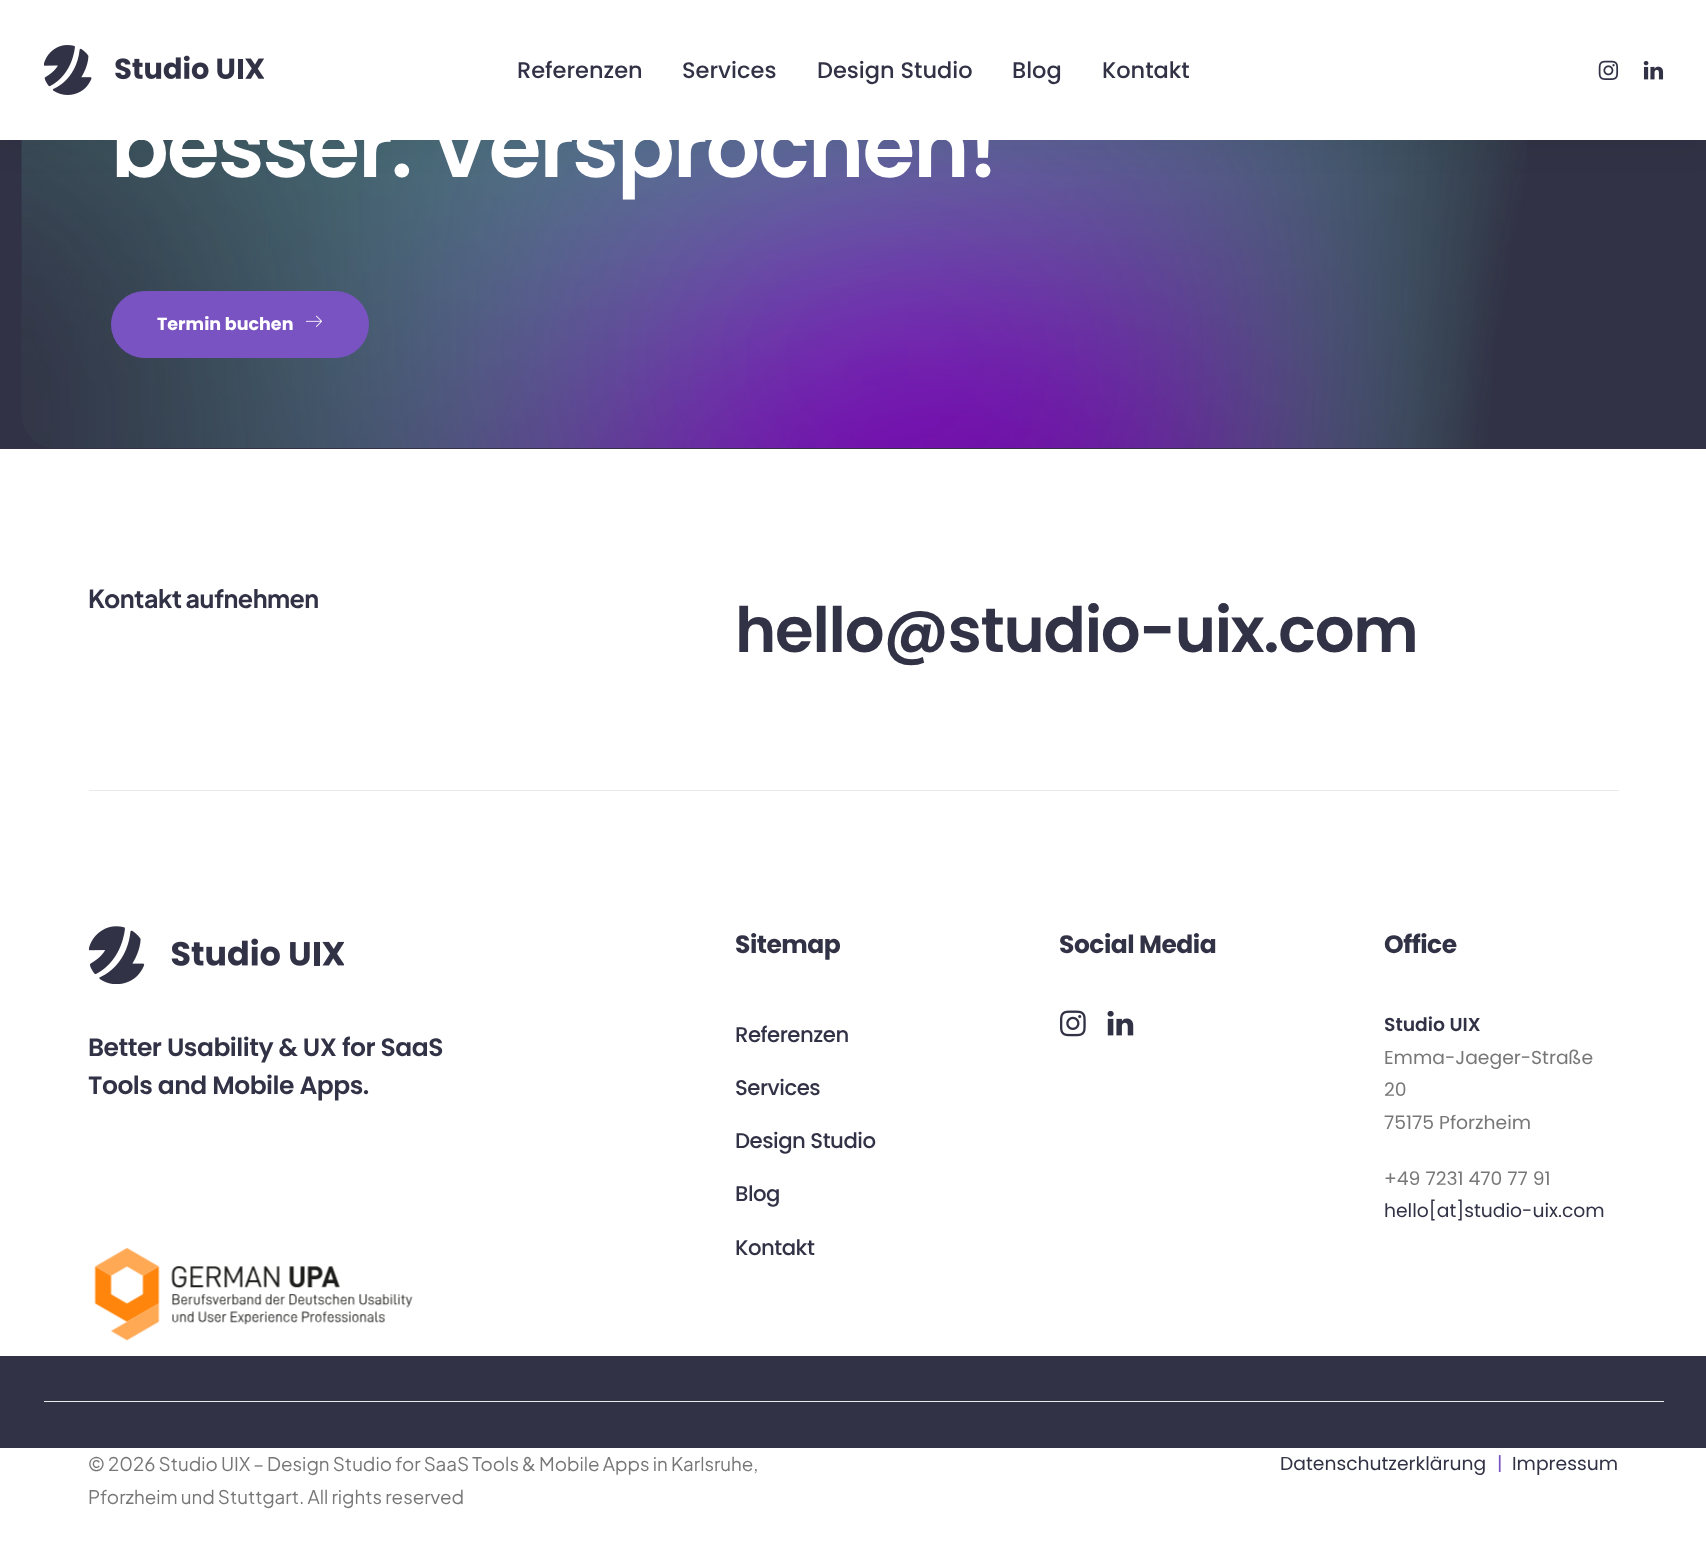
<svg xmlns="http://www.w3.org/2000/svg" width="1706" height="1566">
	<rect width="100%" height="100%" fill="#323246" />
	<image x="21" y="140" width="1506" height="308" href="assets/img5.png" />
	<rect x="-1" y="0" width="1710" height="140" fill="#000000" fill-opacity="0.07" filter="blur(19px)" />
	<rect x="0" y="0" width="1706" height="140" fill="#FFFFFF" />
	<image x="44" y="45" width="220" height="50" href="assets/img1.png" />
	<g font-family="Poppins" font-size="22.5" font-weight="500" fill="#323246">
		<text x="517" y="78">Referenzen</text>
		<text x="682" y="78">Services</text>
		<text x="817" y="78">Design Studio</text>
		<text x="1012" y="78">Blog</text>
		<text x="1102" y="78">Kontakt</text>
	</g>
	<image x="1598" y="60" width="21" height="20" href="assets/img2.png" />
	<image x="1643" y="61" width="21" height="19" href="assets/img3.png" />
	<text x="111" y="177" font-family="Poppins" font-size="85.25" font-weight="600" letter-spacing="-1.75" fill="#FFFFFF">besser. Versprochen!</text>
	<rect x="111.5" y="291.5" width="257" height="66" rx="33" fill="#7953C2" stroke="#7953C2" />
	<text x="157" y="330" font-family="Poppins" font-size="17.5" font-weight="700" fill="#FFFFFF">Termin buchen</text>
	<image x="305" y="315" width="17" height="12" href="assets/img4.png" />
	<rect x="0" y="449" width="1706" height="907" fill="#FFFFFF" />
	<text x="88" y="608" font-family="Plus Jakarta Sans" font-size="25" font-weight="700" letter-spacing="-0.5" fill="#323246">Kontakt aufnehmen</text>
	<text x="735" y="652" font-family="Poppins" font-size="62.5" font-weight="600" letter-spacing="-1.25" fill="#323246">hello@studio-uix.com</text>
	<rect x="89" y="790" width="1530" height="1" fill="#EAEAEA" />
	<image x="89" y="926" width="255" height="58" href="assets/img6.png" />
	<g font-family="Poppins" font-size="25" font-weight="600" letter-spacing="-0.5" fill="#323246">
		<text x="88" y="1056">Better Usability &amp; UX for SaaS</text>
		<text x="88" y="1094">Tools and Mobile Apps.</text>
	</g>
	<image x="94" y="1247" width="319" height="94" href="assets/img7.png" />
	<text x="735" y="953" font-family="Poppins" font-size="25" font-weight="700" letter-spacing="-0.5" fill="#323246">Sitemap</text>
	<g font-family="Poppins" font-size="21.25" font-weight="500" letter-spacing="-0.5" fill="#323246">
		<text x="735" y="1042">Referenzen</text>
		<text x="735" y="1095">Services</text>
		<text x="735" y="1148">Design Studio</text>
		<text x="735" y="1201">Blog</text>
		<text x="735" y="1255">Kontakt</text>
	</g>
	<text x="1059" y="953" font-family="Poppins" font-size="25" font-weight="700" letter-spacing="-0.5" fill="#323246">Social Media</text>
	<image x="1060" y="1010" width="26" height="27" href="assets/img8.png" />
	<image x="1107" y="1010" width="27" height="26" href="assets/img9.png" />
	<text x="1384" y="953" font-family="Poppins" font-size="25" font-weight="700" letter-spacing="-0.5" fill="#323246">Office</text>
	<text x="1384" y="1031" font-family="Poppins" font-size="18.75" font-weight="600" fill="#323246">Studio UIX</text>
	<g font-family="Poppins" font-size="18.75" fill="#777777">
		<text x="1384" y="1064">Emma-Jaeger-Straße</text>
		<text x="1384" y="1096">20</text>
		<text x="1384" y="1129">75175 Pforzheim</text>
		<text x="1384" y="1185">+49 7231 470 77 91</text>
	</g>
	<text x="1384" y="1217" font-family="Poppins" font-size="18.75" fill="#323246">hello[at]studio-uix.com</text>
	<rect x="44" y="1401" width="1620" height="1" fill="#EAEAEA" />
	<rect x="0" y="1448" width="1706" height="118" fill="#FFFFFF" />
	<g font-family="Plus Jakarta Sans" font-size="18.75" fill="#777777">
		<text x="88" y="1471">© 2026 Studio UIX – Design Studio for SaaS Tools &amp; Mobile Apps in Karlsruhe,</text>
		<text x="88" y="1504">Pforzheim und Stuttgart. All rights reserved</text>
	</g>
	<text x="1280" y="1470" font-family="Poppins" font-size="18.75" fill="#323246">Datenschutzerklärung</text>
	<text x="1497" y="1470" font-family="Poppins" font-size="18.75" fill="#7953C2">|</text>
	<text x="1512" y="1470" font-family="Poppins" font-size="18.75" fill="#323246">Impressum</text>
</svg>
